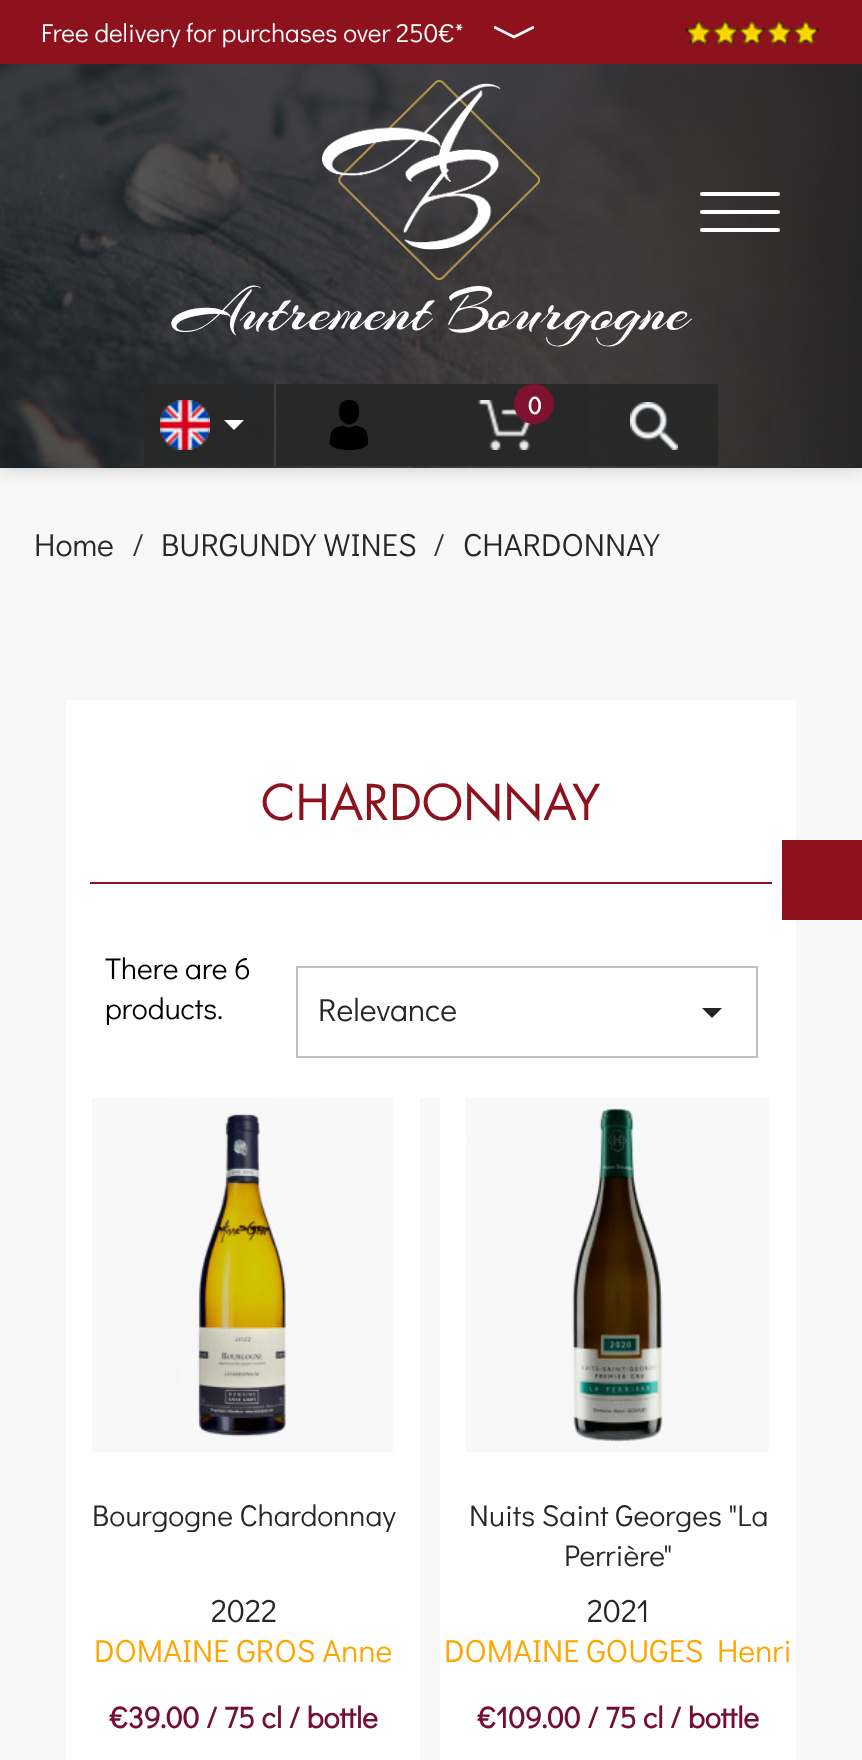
<svg xmlns="http://www.w3.org/2000/svg" width="862" height="1760">
	<defs>
		<clipPath id="clip1"><rect x="494" y="14" width="40" height="36" /></clipPath>
	</defs>
	<rect width="100%" height="100%" fill="#F8F8F8" />
	<rect x="0" y="0" width="862" height="468" fill="#000000" fill-opacity="0.19" filter="blur(10px)" />
	<rect x="0" y="0" width="862" height="64" fill="#8D121E" />
	<text x="41" y="42" font-family="Didact Gothic" font-size="26" fill="#FFFFFF">Free delivery for purchases over 250€*</text>
	<g clip-path="url(#clip1)">
		<path d="M494 27L514 37L534 27" fill="none" stroke="#FFFFFF" stroke-width="2.9" />
	</g>
	<image x="685" y="21" width="134" height="24" href="assets/img1.png" />
	<image x="0" y="64" width="862" height="404" href="assets/img2.png" />
	<rect x="700" y="192" width="80" height="4" rx="2" fill="#FFFFFF" />
	<rect x="700" y="210" width="80" height="4" rx="2" fill="#FFFFFF" />
	<rect x="700" y="228" width="80" height="4" rx="2" fill="#FFFFFF" />
	<image x="322" y="80" width="218" height="200" href="assets/img3.png" />
	<text x="173" y="329" font-family="Arizonia" font-size="64.25" fill="#FFFFFF">Autrement Bourgogne</text>
	<rect x="144" y="384" width="130" height="82" fill="#272727" fill-opacity="0.85" />
	<image x="160" y="400" width="50" height="50" href="assets/img4.png" />
	<path d="M224 420H244L234 430Z" fill="#FFFFFF" />
	<rect x="276" y="384" width="146" height="82" fill="#272727" fill-opacity="0.95" />
	<rect x="274" y="384" width="2" height="82" fill="#3F3F3F" />
	<image x="330" y="400" width="38" height="50" href="assets/img5.png" />
	<rect x="422" y="384" width="168" height="82" fill="#272727" fill-opacity="0.95" />
	<image x="478" y="400" width="53" height="50" href="assets/img6.png" />
	<circle cx="534" cy="404" r="20" fill="#7E1230" />
	<text x="528" y="414" font-family="Didact Gothic" font-size="24" font-weight="700" fill="#FFFFFF">0</text>
	<rect x="590" y="384" width="128" height="82" fill="#272727" fill-opacity="0.85" />
	<image x="630" y="402" width="48" height="48" href="assets/img7.png" />
	<text x="34" y="556" font-family="Didact Gothic" font-size="32" fill="#272727">Home</text>
	<text x="132" y="556" font-family="Didact Gothic" font-size="32" fill="#333333">/</text>
	<text x="161" y="556" font-family="Didact Gothic" font-size="32" fill="#272727">BURGUNDY WINES</text>
	<text x="433" y="556" font-family="Didact Gothic" font-size="32" fill="#333333">/</text>
	<text x="463" y="556" font-family="Didact Gothic" font-size="32" fill="#272727">CHARDONNAY</text>
	<rect x="66" y="700" width="730" height="398" fill="#FFFFFF" />
	<rect x="90" y="882" width="682" height="2" fill="#8D121E" />
	<text x="261" y="820" font-family="Futura" font-size="48" fill="#8D121E">CHARDONNAY</text>
	<g font-family="Didact Gothic" font-size="30" fill="#000000">
		<text x="105" y="979">There are 6</text>
		<text x="105" y="1019">products.</text>
	</g>
	<rect x="297" y="967" width="460" height="90" fill="none" stroke="#BFBFBF" stroke-width="2" />
	<text x="318" y="1021" font-family="Didact Gothic" font-size="32" fill="#272727">Relevance</text>
	<path d="M702 1008H722L712 1018Z" fill="#232323" />
	<rect x="66" y="1098" width="354" height="662" fill="#FFFFFF" />
	<image x="92" y="1098" width="301" height="354" href="assets/img8.png" />
	<text x="92" y="1526" font-family="Didact Gothic" font-size="30" fill="#272727">Bourgogne Chardonnay</text>
	<text x="211" y="1622" font-family="Didact Gothic" font-size="32" fill="#272727">2022</text>
	<text x="94" y="1662" font-family="Didact Gothic" font-size="32" fill="#FFA500">DOMAINE GROS Anne</text>
	<text x="109" y="1728" font-family="Didact Gothic" font-size="30" font-weight="700" fill="#730F37">€39.00 / 75 cl / bottle</text>
	<rect x="440" y="1098" width="356" height="662" fill="#FFFFFF" />
	<image x="466" y="1098" width="303" height="354" href="assets/img9.png" />
	<g font-family="Didact Gothic" font-size="30" fill="#272727">
		<text x="469" y="1526">Nuits Saint Georges "La</text>
		<text x="564" y="1566">Perrière"</text>
	</g>
	<text x="587" y="1622" font-family="Didact Gothic" font-size="32" fill="#272727">2021</text>
	<text x="444" y="1662" font-family="Didact Gothic" font-size="32" fill="#FFA500">DOMAINE GOUGES Henri</text>
	<text x="477" y="1728" font-family="Didact Gothic" font-size="30" font-weight="700" fill="#730F37">€109.00 / 75 cl / bottle</text>
	<rect x="782" y="840" width="80" height="80" fill="#8D121E" />
</svg>
